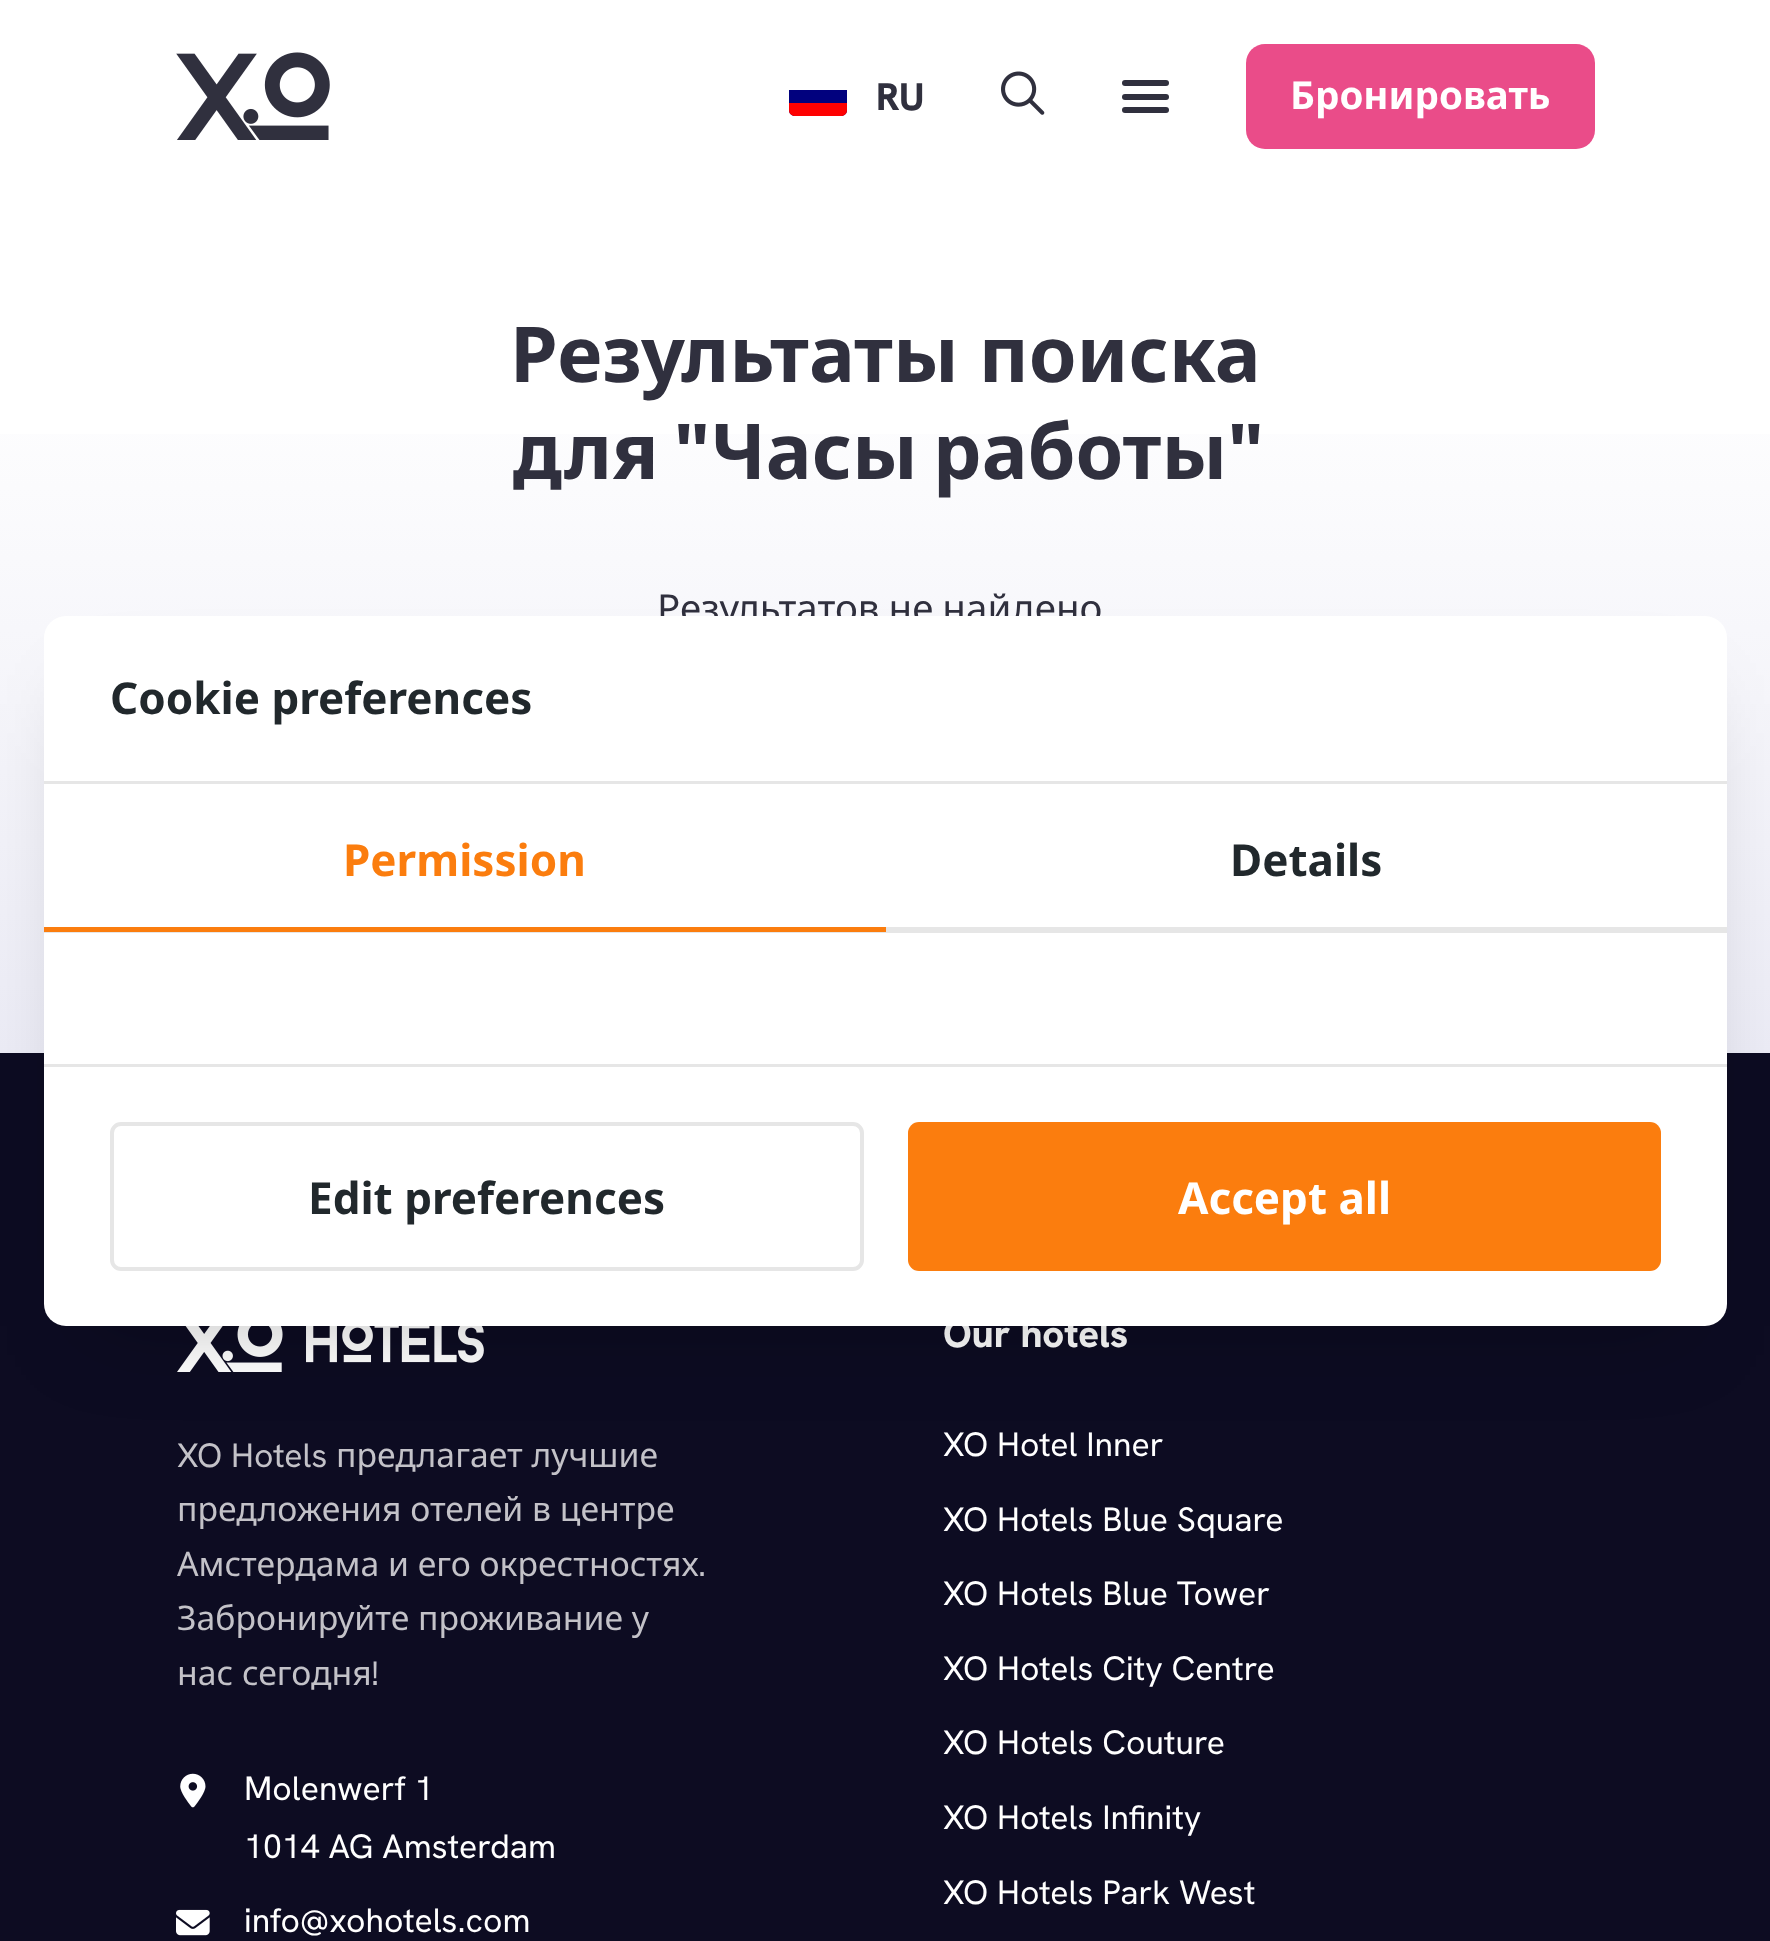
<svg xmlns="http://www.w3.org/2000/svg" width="1770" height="1941">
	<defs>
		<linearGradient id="g1" gradientUnits="userSpaceOnUse" x1="886" y1="346" x2="886" y2="1053"><stop offset="0" stop-color="#FFFFFF" /><stop offset="1" stop-color="#EBEBF5" /></linearGradient>
	</defs>
	<rect width="100%" height="100%" fill="#FFFFFF" />
	<image x="176" y="52" width="154" height="88" href="assets/img1.png" />
	<path d="M789 90H847V110C847 113.5 844.5 116 841 116H795C791.5 116 789 113.5 789 110Z" fill="#01017E" />
	<path d="M789 103H847V110C847 113.5 844.5 116 841 116H795C791.5 116 789 113.5 789 110Z" fill="#FE0101" />
	<text x="876" y="110" font-family="Hanken Grotesk" font-size="38.5" font-weight="800" fill="#30303E">RU</text>
	<image x="1001" y="71" width="44" height="44" href="assets/img2.png" />
	<rect x="1122" y="80" width="47" height="6" rx="3" fill="#30303E" />
	<rect x="1122" y="94" width="47" height="6" rx="3" fill="#30303E" />
	<rect x="1122" y="107" width="47" height="6" rx="3" fill="#30303E" />
	<rect x="1246" y="44" width="349" height="105" rx="19" fill="#EA4C89" />
	<text x="1290" y="109" font-family="Noto Sans" font-size="38.5" font-weight="700" fill="#FFFFFF">Бронировать</text>
	<text x="510" y="382" font-family="Noto Sans" font-size="77" font-weight="700" fill="#30303E">Результаты поиска</text>
	<rect x="0" y="434" width="1770" height="619" fill="url(#g1)" />
	<text x="513" y="479" word-spacing="-5" font-family="Noto Sans" font-size="77" font-weight="700" fill="#30303E">для "Часы работы"</text>
	<text x="657" y="622" word-spacing="-1" font-family="Noto Sans" font-size="38.5" fill="#30303E">Результатов не найдено</text>
	<rect x="0" y="1053" width="1770" height="888" fill="#0D0C22" />
	<image x="177" y="1326" width="307" height="46" href="assets/img3.png" />
	<text x="177" y="1467" font-family="Hanken Grotesk" font-size="33.75" fill="#C3C2C8">XO Hotels</text>
	<g font-family="Noto Sans" font-size="33.75" fill="#C3C2C8">
		<text x="336" y="1467">предлагает лучшие</text>
		<text x="177" y="1521">предложения отелей в центре</text>
		<text x="177" y="1576">Амстердама и его окрестностях</text>
	</g>
	<text x="698" y="1576" font-family="Hanken Grotesk" font-size="33.75" fill="#C3C2C8">.</text>
	<g font-family="Noto Sans" font-size="33.75" fill="#C3C2C8">
		<text x="177" y="1630">Забронируйте проживание у</text>
		<text x="177" y="1685">нас сегодня</text>
	</g>
	<text x="371" y="1685" font-family="Hanken Grotesk" font-size="33.75" fill="#C3C2C8">!</text>
	<image x="180" y="1773" width="26" height="35" href="assets/img4.png" />
	<g font-family="Hanken Grotesk" font-size="33.75" fill="#FFFFFF">
		<text x="244" y="1800">Molenwerf 1</text>
		<text x="244" y="1858">1014 AG Amsterdam</text>
	</g>
	<image x="176" y="1909" width="34" height="27" href="assets/img5.png" />
	<text x="244" y="1932" font-family="Hanken Grotesk" font-size="33.75" fill="#FFFFFF">info@xohotels.com</text>
	<text x="943" y="1347" font-family="Hanken Grotesk" font-size="38.5" font-weight="800" fill="#FFFFFF">Our hotels</text>
	<g font-family="Hanken Grotesk" font-size="33.75" fill="#FFFFFF">
		<text x="943" y="1456">XO Hotel Inner</text>
		<text x="943" y="1531">XO Hotels Blue Square</text>
		<text x="943" y="1605">XO Hotels Blue Tower</text>
		<text x="943" y="1680">XO Hotels City Centre</text>
		<text x="943" y="1754">XO Hotels Couture</text>
		<text x="943" y="1829">XO Hotels Infinity</text>
		<text x="943" y="1904">XO Hotels Park West</text>
	</g>
	<rect x="88" y="704" width="1595" height="622" fill="#000000" fill-opacity="0.25" filter="blur(44px)" />
	<rect x="44" y="616" width="1683" height="710" rx="22" fill="#FFFFFF" />
	<rect x="44" y="781" width="1683" height="3" fill="#E6E6E6" />
	<text x="110" y="714" font-family="Noto Sans" font-size="44" font-weight="700" fill="#21282C">Cookie preferences</text>
	<rect x="44" y="927" width="1683" height="6" fill="#E6E6E6" />
	<rect x="44" y="927" width="842" height="5" fill="#FB7D0E" />
	<text x="343" y="876" font-family="Noto Sans" font-size="44" font-weight="700" fill="#FB7D0E">Permission</text>
	<text x="1230" y="876" font-family="Noto Sans" font-size="44" font-weight="700" fill="#21282C">Details</text>
	<rect x="44" y="1064" width="1683" height="3" fill="#E6E6E6" />
	<rect x="112" y="1124" width="750" height="145" rx="9" fill="none" stroke="#E6E6E6" stroke-width="4" />
	<text x="308" y="1214" font-family="Noto Sans" font-size="44" font-weight="700" fill="#21282C">Edit preferences</text>
	<rect x="908" y="1122" width="753" height="149" rx="11" fill="#FB7D0E" />
	<text x="1178" y="1214" font-family="Noto Sans" font-size="44" font-weight="700" fill="#FFFFFF">Accept all</text>
</svg>
